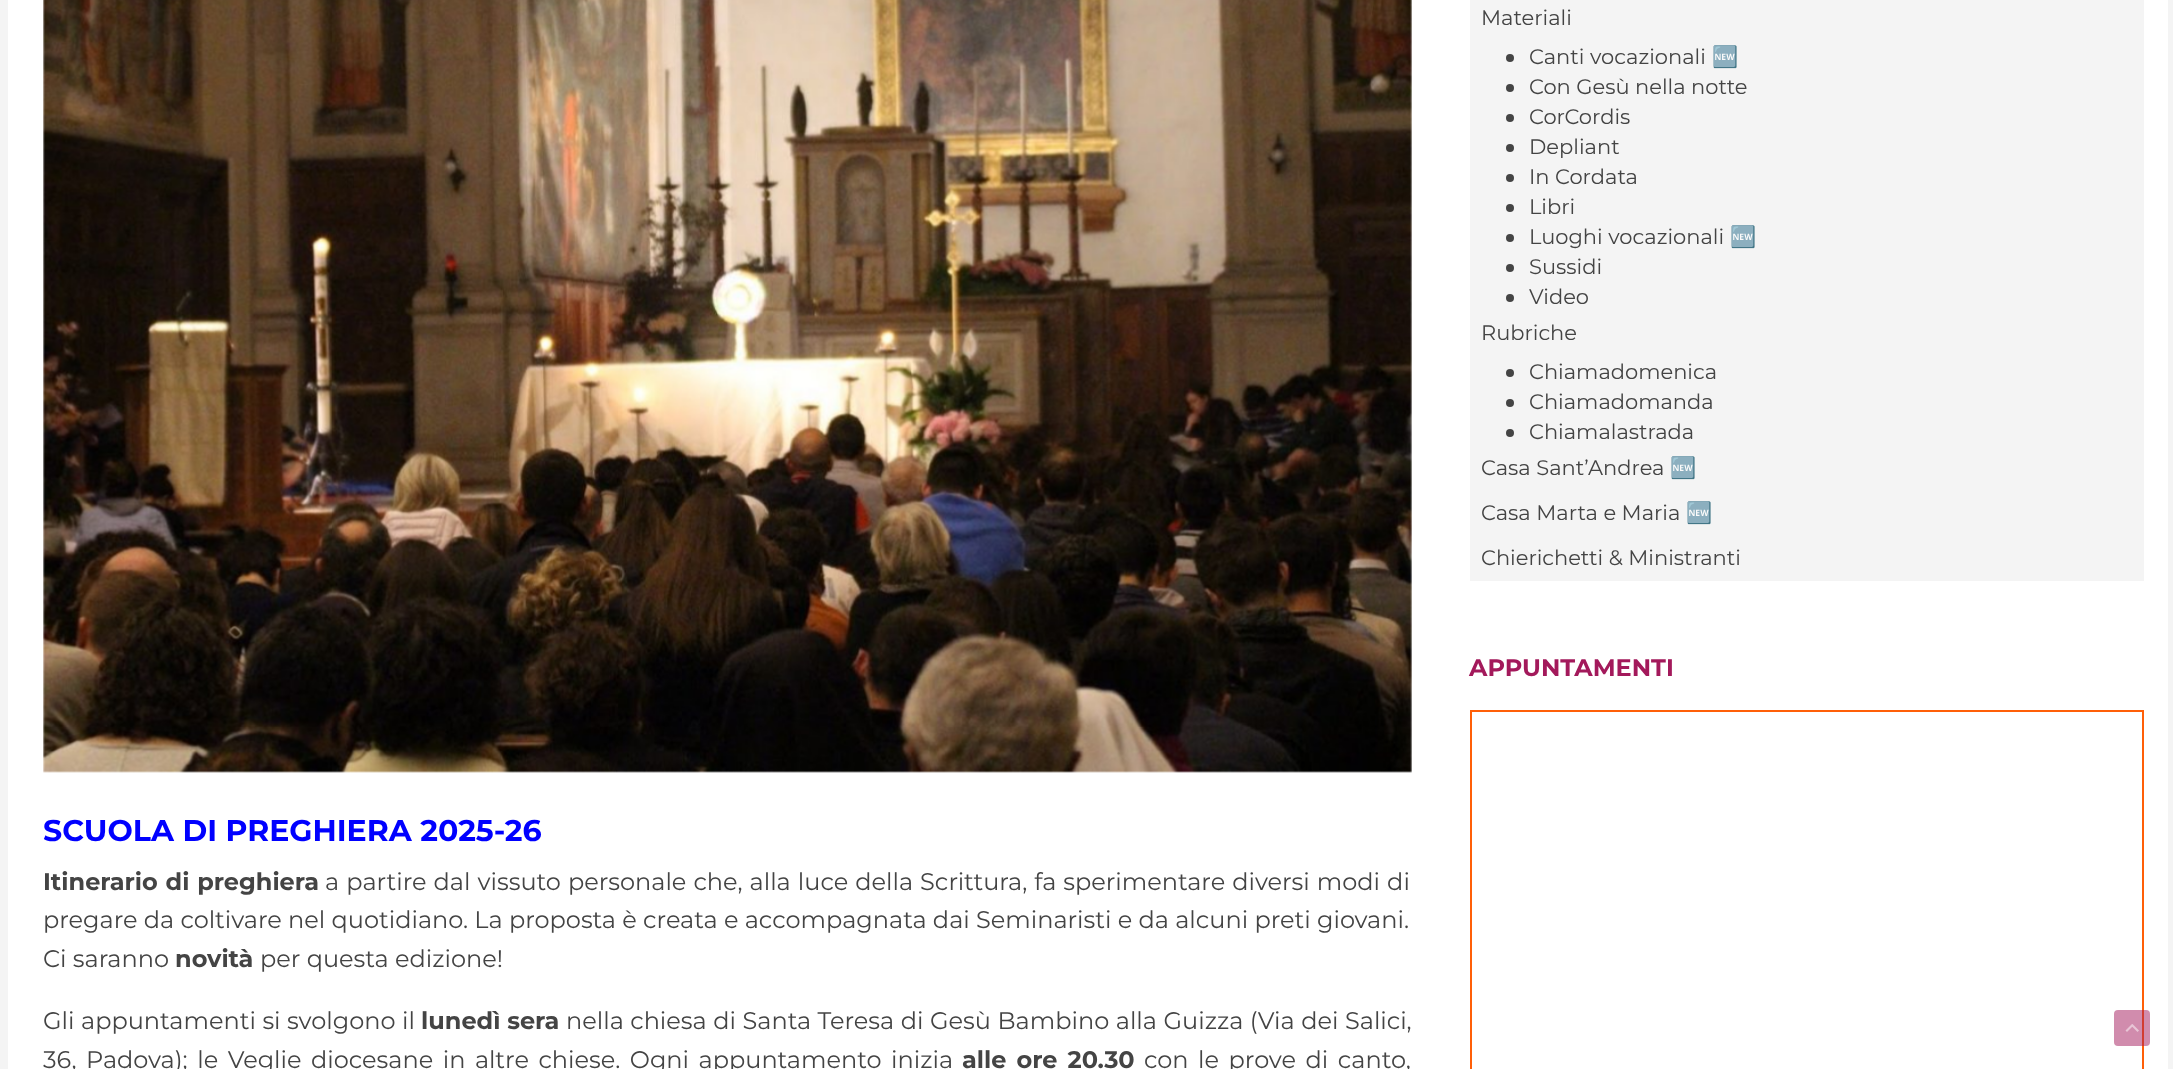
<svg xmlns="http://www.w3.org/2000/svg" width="2173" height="1069">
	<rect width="100%" height="100%" fill="#F4F4F4" />
	<rect x="8" y="0" width="2160" height="1069" fill="#FFFFFF" />
	<rect x="1470" y="0" width="674" height="581" fill="#F4F4F4" />
	<text x="1481" y="25" font-family="Montserrat" font-size="21" fill="#444444">Materiali</text>
	<circle cx="1510" cy="58" r="4" fill="#444444" />
	<text x="1529" y="64" font-family="Montserrat" font-size="21" fill="#444444">Canti vocazionali</text>
	<text x="1712" y="64" font-family="Noto Color Emoji" font-size="21" fill="#444444">🆕</text>
	<circle cx="1510" cy="88" r="4" fill="#444444" />
	<text x="1529" y="94" font-family="Montserrat" font-size="21" fill="#444444">Con Gesù nella notte</text>
	<circle cx="1510" cy="118" r="4" fill="#444444" />
	<text x="1529" y="124" font-family="Montserrat" font-size="21" fill="#444444">CorCordis</text>
	<circle cx="1510" cy="148" r="4" fill="#444444" />
	<text x="1529" y="154" font-family="Montserrat" font-size="21" fill="#444444">Depliant</text>
	<circle cx="1510" cy="178" r="4" fill="#444444" />
	<text x="1529" y="184" font-family="Montserrat" font-size="21" fill="#444444">In Cordata</text>
	<circle cx="1510" cy="208" r="4" fill="#444444" />
	<text x="1529" y="214" font-family="Montserrat" font-size="21" fill="#444444">Libri</text>
	<circle cx="1510" cy="238" r="4" fill="#444444" />
	<text x="1529" y="244" font-family="Montserrat" font-size="21" fill="#444444">Luoghi vocazionali</text>
	<text x="1730" y="244" font-family="Noto Color Emoji" font-size="21" fill="#444444">🆕</text>
	<circle cx="1510" cy="268" r="4" fill="#444444" />
	<text x="1529" y="274" font-family="Montserrat" font-size="21" fill="#444444">Sussidi</text>
	<circle cx="1510" cy="298" r="4" fill="#444444" />
	<g font-family="Montserrat" font-size="21" fill="#444444">
		<text x="1529" y="304">Video</text>
		<text x="1481" y="340">Rubriche</text>
	</g>
	<circle cx="1510" cy="373" r="4" fill="#444444" />
	<text x="1529" y="379" font-family="Montserrat" font-size="21" fill="#444444">Chiamadomenica</text>
	<circle cx="1510" cy="403" r="4" fill="#444444" />
	<text x="1529" y="409" font-family="Montserrat" font-size="21" fill="#444444">Chiamadomanda</text>
	<circle cx="1510" cy="433" r="4" fill="#444444" />
	<g font-family="Montserrat" font-size="21" fill="#444444">
		<text x="1529" y="439">Chiamalastrada</text>
		<text x="1481" y="475">Casa Sant’Andrea</text>
	</g>
	<text x="1670" y="475" font-family="Noto Color Emoji" font-size="21" fill="#444444">🆕</text>
	<text x="1481" y="520" font-family="Montserrat" font-size="21" fill="#444444">Casa Marta e Maria</text>
	<text x="1686" y="520" font-family="Noto Color Emoji" font-size="21" fill="#444444">🆕</text>
	<text x="1481" y="565" font-family="Montserrat" font-size="21" fill="#444444">Chierichetti &amp; Ministranti</text>
	<text x="1469" y="676" font-family="Montserrat" font-size="24" font-weight="700" fill="#A3195B">APPUNTAMENTI</text>
	<rect x="1471" y="711" width="672" height="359" fill="none" stroke="#FF5F08" stroke-width="2" />
	<image x="43" y="0" width="1369" height="773" href="assets/img1.png" />
	<text x="43" y="841" font-family="Montserrat" font-size="30" font-weight="700" fill="#0000FF">SCUOLA DI PREGHIERA 2025-26</text>
	<text x="43" y="890" word-spacing="1" font-family="Montserrat" font-size="24" font-weight="700" fill="#444444">Itinerario di preghiera</text>
	<g font-family="Montserrat" font-size="24" fill="#444444">
		<text x="325" y="890" word-spacing="0.75">a partire dal vissuto personale che, alla luce della Scrittura, fa sperimentare diversi modi di</text>
		<text x="43" y="928">pregare da coltivare nel quotidiano. La proposta è creata e accompagnata dai Seminaristi e da alcuni preti giovani.</text>
		<text x="43" y="967">Ci saranno</text>
	</g>
	<text x="175" y="967" font-family="Montserrat" font-size="24" font-weight="700" fill="#444444">novità</text>
	<g font-family="Montserrat" font-size="24" fill="#444444">
		<text x="260" y="967">per questa edizione!</text>
		<text x="43" y="1029" word-spacing="0.25">Gli appuntamenti si svolgono il</text>
	</g>
	<text x="421" y="1029" font-family="Montserrat" font-size="24" font-weight="700" fill="#444444">lunedì sera</text>
	<g font-family="Montserrat" font-size="24" fill="#444444">
		<text x="566" y="1029" word-spacing="0.25">nella chiesa di Santa Teresa di Gesù Bambino alla Guizza (Via dei Salici,</text>
		<text x="43" y="1068" word-spacing="3.25">36, Padova); le Veglie diocesane in altre chiese. Ogni appuntamento inizia</text>
	</g>
	<text x="962" y="1068" word-spacing="3.25" font-family="Montserrat" font-size="24" font-weight="700" fill="#444444">alle ore 20.30</text>
	<text x="1144" y="1068" word-spacing="3.25" font-family="Montserrat" font-size="24" fill="#444444">con le prove di canto,</text>
	<rect x="2114" y="1010" width="36" height="36" rx="4" fill="#A3195B" fill-opacity="0.5" />
	<image x="2125" y="1024" width="14" height="8" href="assets/img2.png" />
</svg>
